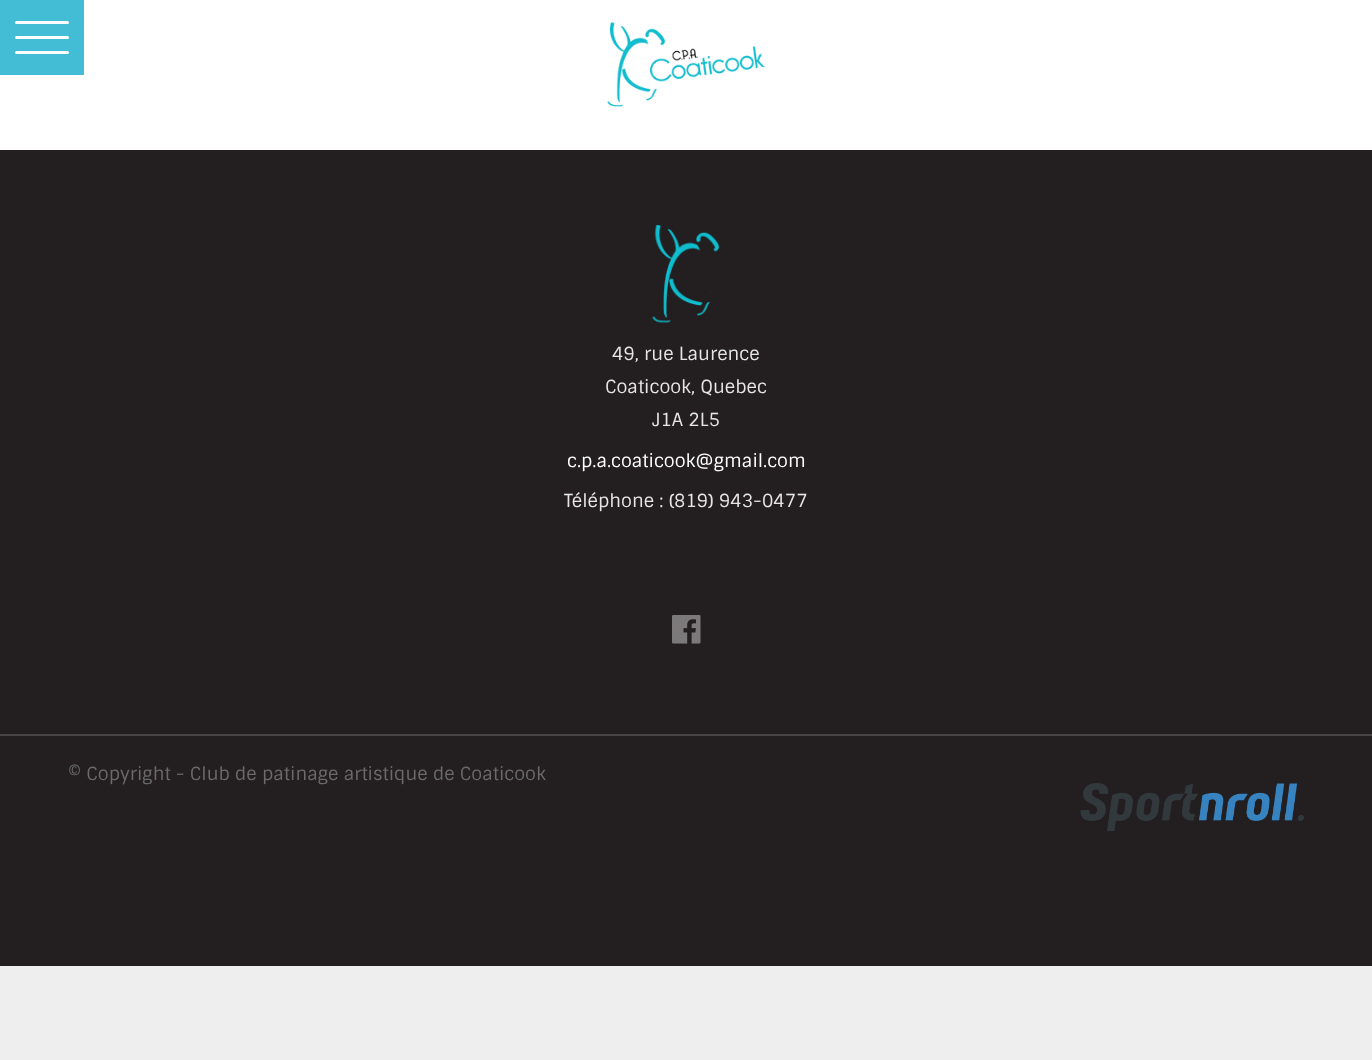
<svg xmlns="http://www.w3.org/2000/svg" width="1372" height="1060">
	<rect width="100%" height="100%" fill="#EEEEEE" />
	<rect x="0" y="0" width="1372" height="150" fill="#FFFFFF" />
	<rect x="0" y="0" width="84" height="75" fill="#43BDD5" />
	<rect x="15" y="21" width="54" height="3" rx="1.5" fill="#FFFFFF" />
	<rect x="15" y="36" width="54" height="3" rx="1.5" fill="#FFFFFF" />
	<rect x="15" y="51" width="54" height="3" rx="1.5" fill="#FFFFFF" />
	<image x="607" y="22" width="158" height="85" href="assets/img1.png" />
	<rect x="0" y="150" width="1372" height="816" fill="#231F20" />
	<image x="652" y="225" width="68" height="98" href="assets/img2.png" />
	<g font-family="Sintony" font-size="18" fill="#E6E6E6">
		<text x="612" y="360">49, rue Laurence</text>
		<text x="605" y="393">Coaticook, Quebec</text>
		<text x="652" y="426">J1A 2L5</text>
	</g>
	<text x="567" y="467" font-family="Sintony" font-size="18" fill="#FFFFFF">c.p.a.coaticook@gmail.com</text>
	<text x="564" y="507" font-family="Sintony" font-size="18" fill="#E6E6E6">Téléphone : (819) 943-0477</text>
	<image x="672" y="615" width="29" height="29" href="assets/img3.png" />
	<rect x="0" y="734" width="1372" height="2" fill="#494345" />
	<text x="68" y="780" font-family="Sintony" font-size="18" fill="#6A6A6A">© Copyright - Club de patinage artistique de Coaticook</text>
	<image x="1080" y="783" width="224" height="48" href="assets/img4.png" />
</svg>
